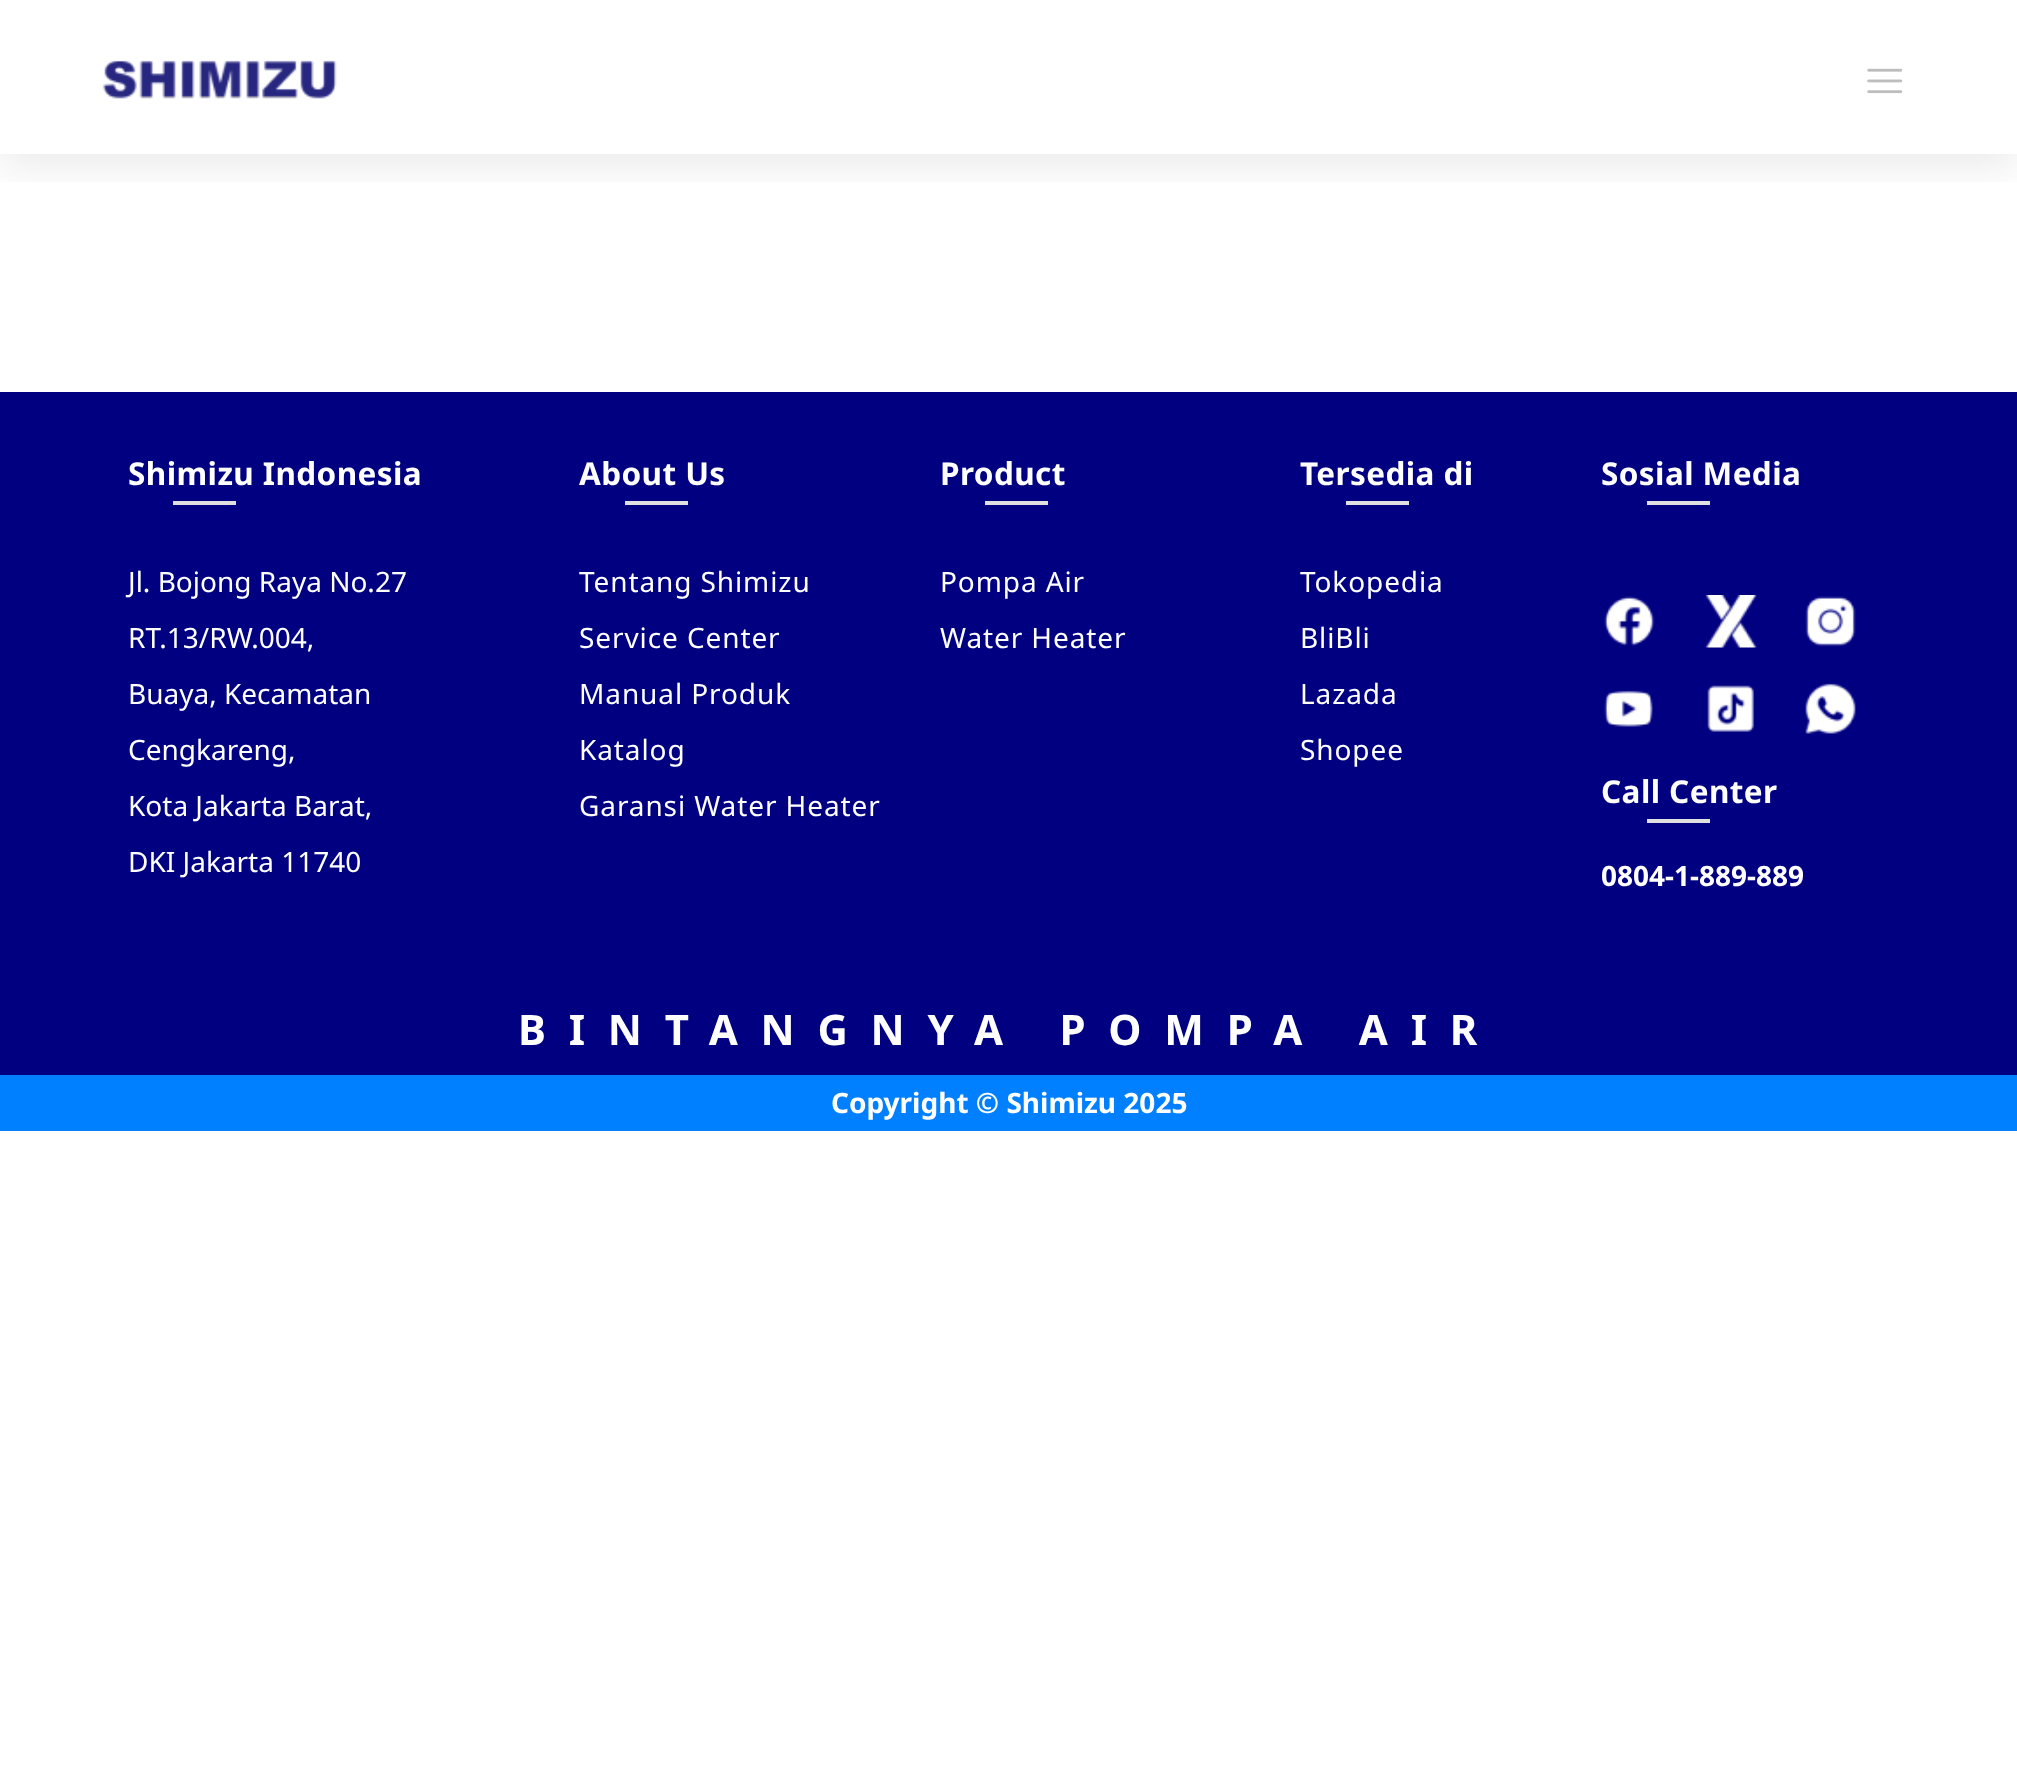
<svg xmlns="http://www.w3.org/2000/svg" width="2017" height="1772">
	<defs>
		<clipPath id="clip1"><rect x="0" y="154" width="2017" height="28" /></clipPath>
	</defs>
	<rect width="100%" height="100%" fill="#FFFFFF" />
	<g clip-path="url(#clip1)">
		<rect x="0" y="14" width="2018" height="154" fill="#000000" fill-opacity="0.08" filter="blur(21px)" />
	</g>
	<image x="102" y="60" width="235" height="39" href="assets/img1.png" />
	<image x="1867" y="68" width="36" height="26" href="assets/img2.png" />
	<rect x="0" y="392" width="2017" height="683" fill="#000080" />
	<text x="128" y="485" font-family="Noto Sans" font-size="31.5" font-weight="700" letter-spacing="0.4" fill="#FFFFFF">Shimizu Indonesia</text>
	<rect x="173" y="501" width="63" height="4" fill="#E0E0E0" />
	<g font-family="Noto Sans" font-size="28" fill="#FFFFFF">
		<text x="128" y="592">Jl. Bojong Raya No.27</text>
		<text x="128" y="648">RT.13/RW.004,</text>
		<text x="128" y="704">Buaya, Kecamatan</text>
		<text x="128" y="760">Cengkareng,</text>
		<text x="128" y="816">Kota Jakarta Barat,</text>
		<text x="128" y="872">DKI Jakarta 11740</text>
	</g>
	<text x="579" y="485" font-family="Noto Sans" font-size="31.5" font-weight="700" letter-spacing="0.4" fill="#FFFFFF">About Us</text>
	<rect x="625" y="501" width="63" height="4" fill="#E0E0E0" />
	<g font-family="Noto Sans" font-size="28" letter-spacing="0.9" fill="#FFFFFF">
		<text x="579" y="592">Tentang Shimizu</text>
		<text x="579" y="648">Service Center</text>
		<text x="579" y="704">Manual Produk</text>
		<text x="579" y="760">Katalog</text>
		<text x="579" y="816">Garansi Water Heater</text>
	</g>
	<text x="940" y="485" font-family="Noto Sans" font-size="31.5" font-weight="700" letter-spacing="0.4" fill="#FFFFFF">Product</text>
	<rect x="985" y="501" width="63" height="4" fill="#E0E0E0" />
	<g font-family="Noto Sans" font-size="28" letter-spacing="0.9" fill="#FFFFFF">
		<text x="940" y="592">Pompa Air</text>
		<text x="940" y="648">Water Heater</text>
	</g>
	<text x="1300" y="485" font-family="Noto Sans" font-size="31.5" font-weight="700" letter-spacing="0.4" fill="#FFFFFF">Tersedia di</text>
	<rect x="1346" y="501" width="63" height="4" fill="#E0E0E0" />
	<g font-family="Noto Sans" font-size="28" letter-spacing="0.9" fill="#FFFFFF">
		<text x="1300" y="592">Tokopedia</text>
		<text x="1300" y="648">BliBli</text>
		<text x="1300" y="704">Lazada</text>
		<text x="1300" y="760">Shopee</text>
	</g>
	<text x="1601" y="485" font-family="Noto Sans" font-size="31.5" font-weight="700" letter-spacing="0.4" fill="#FFFFFF">Sosial Media</text>
	<rect x="1647" y="501" width="63" height="4" fill="#E0E0E0" />
	<image x="1604" y="596" width="51" height="50" href="assets/img3.png" />
	<image x="1604" y="690" width="49" height="37" href="assets/img4.png" />
	<image x="1705" y="595" width="52" height="53" href="assets/img5.png" />
	<image x="1707" y="685" width="47" height="47" href="assets/img6.png" />
	<image x="1805" y="596" width="51" height="51" href="assets/img7.png" />
	<image x="1805" y="683" width="51" height="51" href="assets/img8.png" />
	<text x="1601" y="803" font-family="Noto Sans" font-size="31.5" font-weight="700" letter-spacing="0.4" fill="#FFFFFF">Call Center</text>
	<rect x="1647" y="819" width="63" height="4" fill="#E0E0E0" />
	<text x="1601" y="886" font-family="Noto Sans" font-size="28" font-weight="700" fill="#FFFFFF">0804-1-889-889</text>
	<text x="518" y="1045" font-family="Noto Sans" font-size="42" font-weight="700" letter-spacing="22.75" fill="#FFFFFF">BINTANGNYA POMPA AIR</text>
	<rect x="0" y="1075" width="2017" height="56" fill="#0080FF" />
	<text x="831" y="1113" font-family="Noto Sans" font-size="28" font-weight="700" fill="#FFFFFF">Copyright © Shimizu 2025</text>
</svg>
